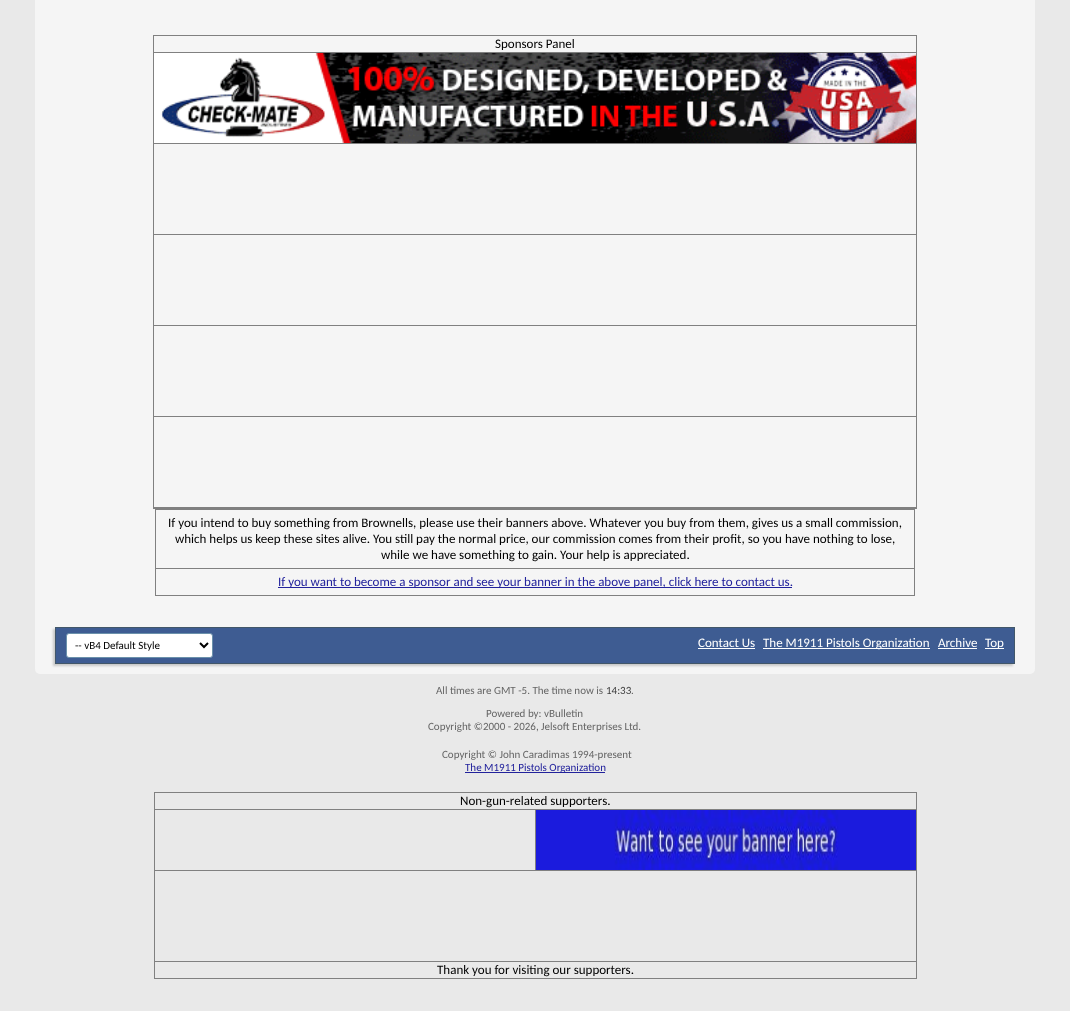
<svg xmlns="http://www.w3.org/2000/svg" width="1070" height="1011">
	<rect width="100%" height="100%" fill="#E9E9E9" />
	<rect x="35" y="-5" width="1000" height="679" rx="5" fill="#F5F5F5" />
	<rect x="153" y="35" width="764" height="1" fill="#808080" />
	<rect x="916" y="35" width="1" height="474" fill="#808080" />
	<rect x="153" y="508" width="764" height="1" fill="#808080" />
	<rect x="153" y="35" width="1" height="474" fill="#808080" />
	<text x="495" y="48" font-family="Carlito" font-size="13" fill="#000000">Sponsors Panel</text>
	<rect x="153" y="52" width="764" height="1" fill="#808080" />
	<image x="154" y="53" width="762" height="90" href="assets/img1.png" />
	<rect x="153" y="143" width="764" height="1" fill="#808080" />
	<rect x="153" y="234" width="764" height="1" fill="#808080" />
	<rect x="153" y="325" width="764" height="1" fill="#808080" />
	<rect x="153" y="416" width="764" height="1" fill="#808080" />
	<rect x="153" y="507" width="764" height="1" fill="#808080" />
	<rect x="155" y="509" width="760" height="1" fill="#808080" />
	<rect x="914" y="509" width="1" height="87" fill="#808080" />
	<rect x="155" y="595" width="760" height="1" fill="#808080" />
	<rect x="155" y="509" width="1" height="87" fill="#808080" />
	<g font-family="Carlito" font-size="13" fill="#000000">
		<text x="168" y="527">If you intend to buy something from Brownells, please use their banners above. Whatever you buy from them, gives us a small commission,</text>
		<text x="175" y="543">which helps us keep these sites alive. You still pay the normal price, our commission comes from their profit, so you have nothing to lose,</text>
		<text x="381" y="559">while we have something to gain. Your help is appreciated.</text>
	</g>
	<rect x="155" y="568" width="760" height="1" fill="#808080" />
	<rect x="278" y="587" width="514" height="1" fill="#22229C" />
	<text x="278" y="586" font-family="Carlito" font-size="13" fill="#22229C">If you want to become a sponsor and see your banner in the above panel, click here to contact us.</text>
	<rect x="53" y="629" width="960" height="37" fill="#C8C8C8" filter="blur(1px)" />
	<rect x="55.5" y="627.5" width="959" height="36" fill="#3E5C92" stroke="#425769" />
	<rect x="66.5" y="633.5" width="146" height="24" rx="2.5" fill="#FFFFFF" stroke="#6B91AB" />
	<path d="M200 643L204 647L208 643" fill="none" stroke="#000000" stroke-width="2" />
	<text x="75" y="649" font-family="Carlito" font-size="11" fill="#000000">-- vB4 Default Style</text>
	<text x="698" y="647" font-family="Carlito" font-size="13" fill="#FFFFFF">Contact Us</text>
	<rect x="698" y="648" width="57" height="1" fill="#FFFFFF" />
	<rect x="763" y="648" width="167" height="1" fill="#FFFFFF" />
	<g font-family="Carlito" font-size="13" fill="#FFFFFF">
		<text x="763" y="647">The M1911 Pistols Organization</text>
		<text x="938" y="647">Archive</text>
	</g>
	<rect x="938" y="648" width="39" height="1" fill="#FFFFFF" />
	<rect x="985" y="648" width="19" height="1" fill="#FFFFFF" />
	<text x="985" y="647" font-family="Carlito" font-size="13" fill="#FFFFFF">Top</text>
	<text x="436" y="694" font-family="Carlito" font-size="11" fill="#666666">All times are GMT -5. The time now is</text>
	<text x="606" y="694" font-family="Carlito" font-size="11" fill="#3E3E3E">14:33</text>
	<g font-family="Carlito" font-size="11" fill="#666666">
		<text x="631" y="694">.</text>
		<text x="486" y="717">Powered by: vBulletin</text>
		<text x="428" y="730">Copyright ©2000 - 2026, Jelsoft Enterprises Ltd.</text>
		<text x="442" y="758">Copyright © John Caradimas 1994-present</text>
	</g>
	<rect x="465" y="772" width="140" height="1" fill="#22229C" />
	<text x="465" y="771" font-family="Carlito" font-size="11" fill="#22229C">The M1911 Pistols Organization</text>
	<rect x="154" y="792" width="763" height="1" fill="#808080" />
	<rect x="916" y="792" width="1" height="187" fill="#808080" />
	<rect x="154" y="978" width="763" height="1" fill="#808080" />
	<rect x="154" y="792" width="1" height="187" fill="#808080" />
	<text x="460" y="805" font-family="Carlito" font-size="13" fill="#000000">Non-gun-related supporters.</text>
	<rect x="535" y="809" width="382" height="1" fill="#808080" />
	<rect x="154" y="870" width="763" height="1" fill="#808080" />
	<rect x="535" y="809" width="1" height="62" fill="#808080" />
	<rect x="154" y="809" width="382" height="1" fill="#808080" />
	<image x="536" y="810" width="380" height="60" href="assets/img2.png" />
	<rect x="154" y="961" width="763" height="1" fill="#808080" />
	<text x="437" y="974" font-family="Carlito" font-size="13" fill="#000000">Thank you for visiting our supporters.</text>
</svg>
